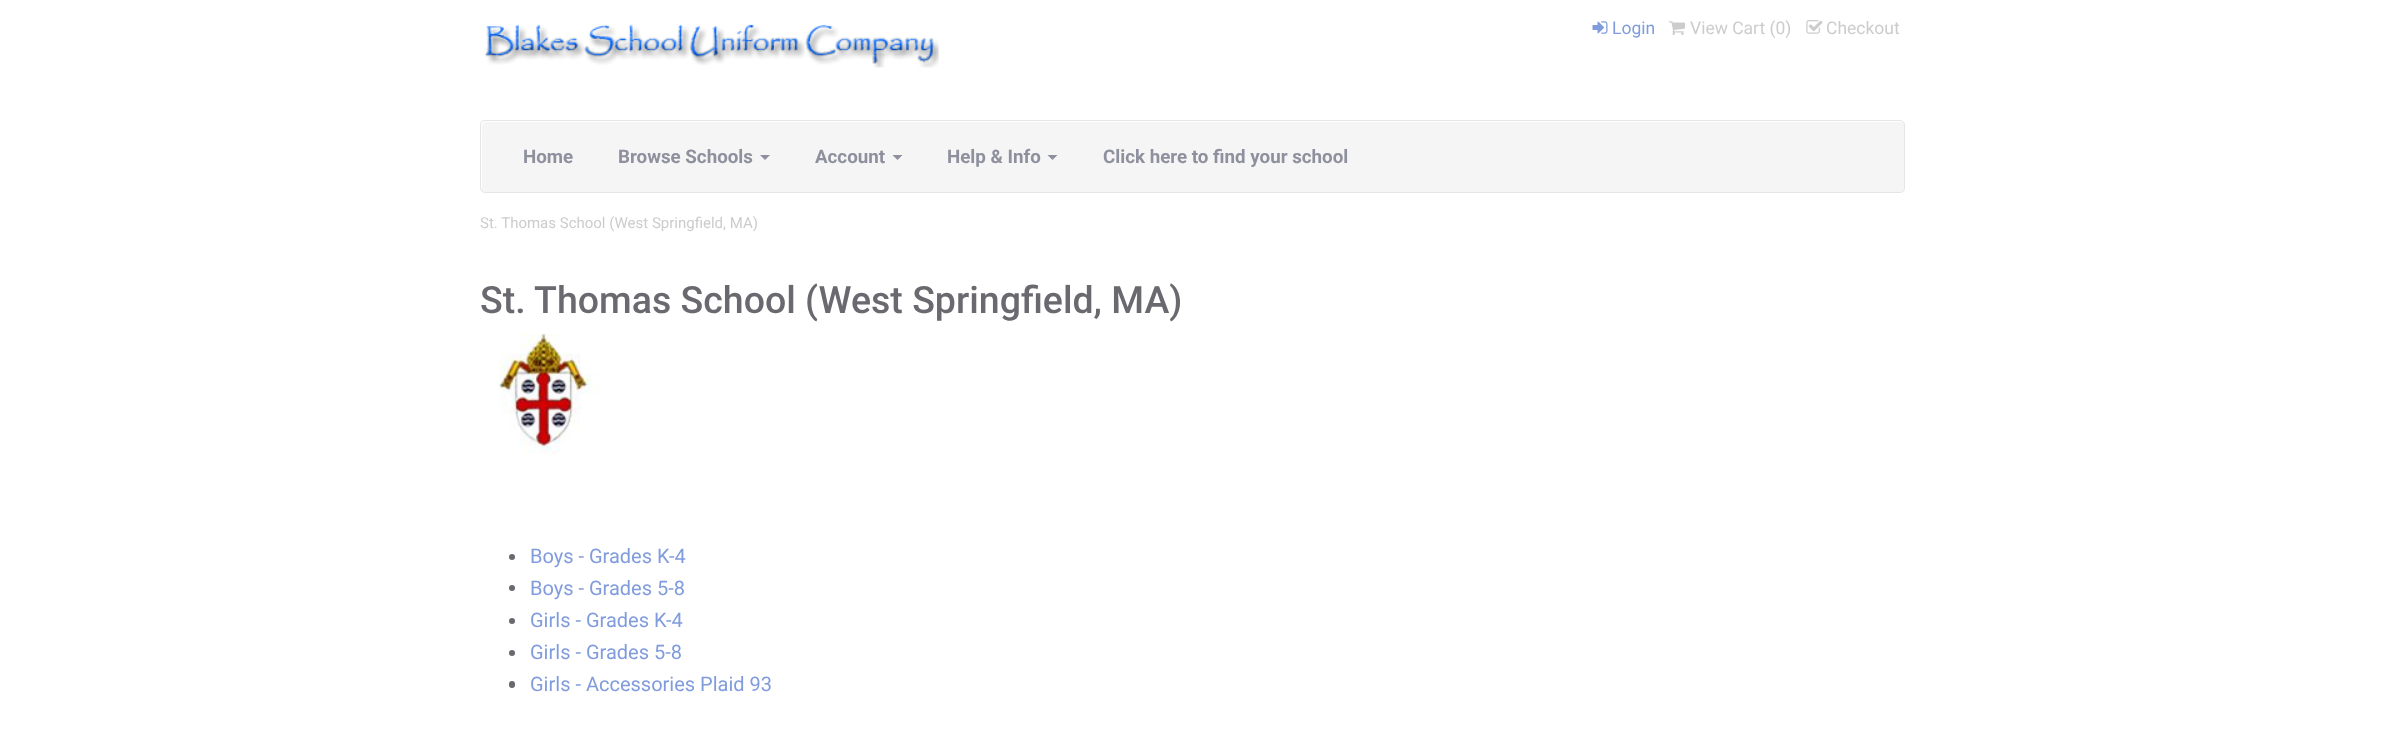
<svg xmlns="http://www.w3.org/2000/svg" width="2385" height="756">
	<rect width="100%" height="100%" fill="#FFFFFF" />
	<image x="485" y="24" width="454" height="44" href="assets/img1.png" />
	<image x="1592" y="21" width="16" height="13" href="assets/img2.png" />
	<text x="1612" y="34" font-family="Roboto" font-size="17.5" fill="#809CDC">Login</text>
	<image x="1668" y="21" width="17" height="14" href="assets/img3.png" />
	<text x="1690" y="34" font-family="Roboto" font-size="17.5" fill="#CCCCCC">View Cart (0)</text>
	<image x="1806" y="20" width="17" height="14" href="assets/img4.png" />
	<text x="1826" y="34" font-family="Roboto" font-size="17.5" fill="#CCCCCC">Checkout</text>
	<rect x="480" y="120" width="1425" height="73" rx="5" fill="#F5F5F5" />
	<path d="M486 122H1901L1903 123C1903 122 1901 121 1900 121H485C483 121 481 123 481 125V187C481 188 481 189 482 190V136C482 135 480 122 486 122Z" fill="#FFFFFF" />
	<rect x="480.5" y="120.5" width="1424" height="72" rx="4.5" fill="none" stroke="#CCCCCC" stroke-opacity="0.36" />
	<g font-family="Roboto" font-size="18.75" font-weight="700" fill="#8F909E">
		<text x="523" y="163">Home</text>
		<text x="618" y="163">Browse Schools</text>
	</g>
	<path d="M760 155H770L765 160Z" fill="#8F909E" />
	<text x="815" y="163" font-family="Roboto" font-size="18.75" font-weight="700" fill="#8F909E">Account</text>
	<path d="M892.5 155H902.5L897.5 160Z" fill="#8F909E" />
	<text x="947" y="163" font-family="Roboto" font-size="18.75" font-weight="700" fill="#8F909E">Help &amp; Info</text>
	<path d="M1047.5 155H1057.5L1052.5 160Z" fill="#8F909E" />
	<text x="1103" y="163" font-family="Roboto" font-size="18.75" font-weight="700" fill="#8F909E">Click here to find your school</text>
	<text x="480" y="228" font-family="Roboto" font-size="15" fill="#CCCCCC">St. Thomas School (West Springfield, MA)</text>
	<text x="480" y="313" font-family="Roboto" font-size="37.5" font-weight="500" fill="#69696F">St. Thomas School (West Springfield, MA)</text>
	<image x="498" y="333" width="102" height="121" href="assets/img5.png" />
	<circle cx="512" cy="557" r="3" fill="#69696F" />
	<text x="530" y="563" font-family="Roboto" font-size="20" fill="#809CDC">Boys - Grades K-4</text>
	<circle cx="512" cy="588" r="3" fill="#69696F" />
	<text x="530" y="595" font-family="Roboto" font-size="20" fill="#809CDC">Boys - Grades 5-8</text>
	<circle cx="512" cy="621" r="3" fill="#69696F" />
	<text x="530" y="627" font-family="Roboto" font-size="20" fill="#809CDC">Girls - Grades K-4</text>
	<circle cx="512" cy="653" r="3" fill="#69696F" />
	<text x="530" y="659" font-family="Roboto" font-size="20" fill="#809CDC">Girls - Grades 5-8</text>
	<rect x="509" y="681" width="6" height="7" rx="3" fill="#69696F" />
	<text x="530" y="691" font-family="Roboto" font-size="20" fill="#809CDC">Girls - Accessories Plaid 93</text>
</svg>
